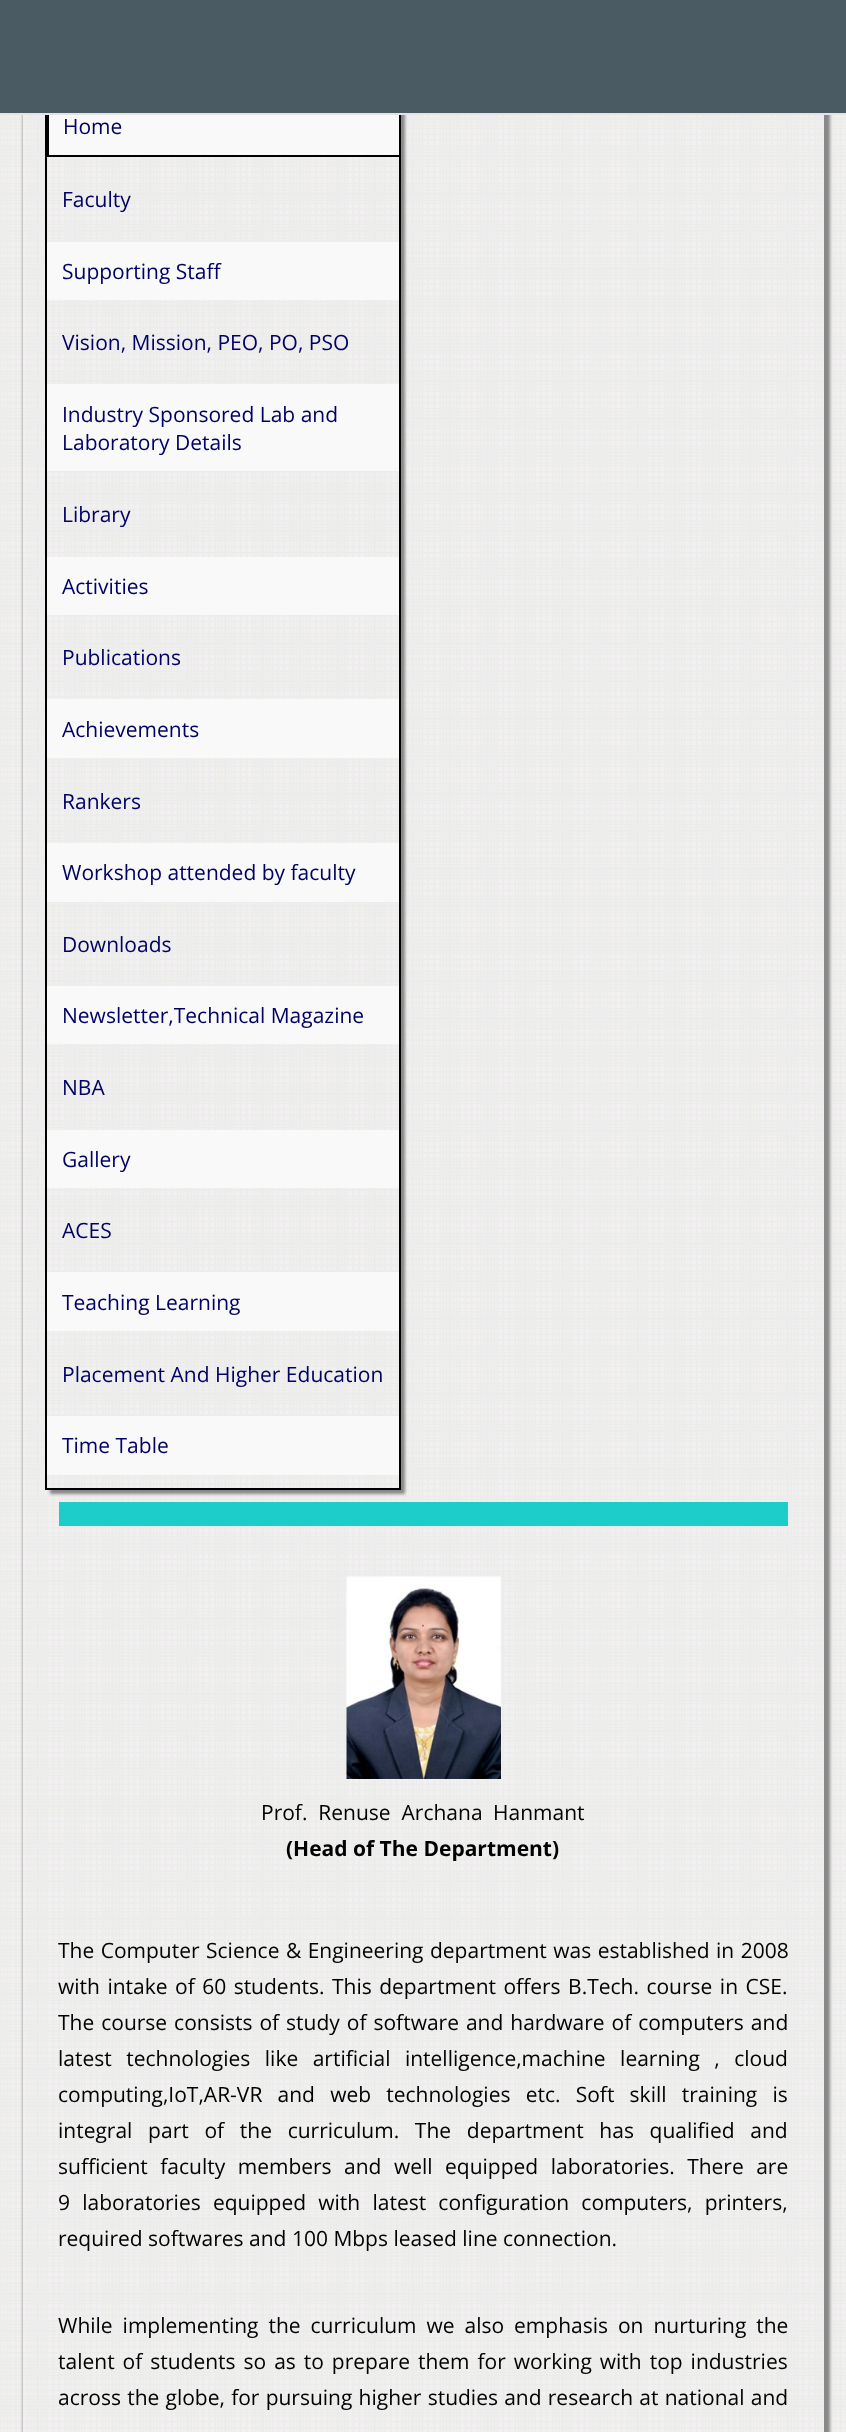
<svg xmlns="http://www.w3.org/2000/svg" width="846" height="2432">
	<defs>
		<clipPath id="clip1"><path d="M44 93H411V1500H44ZM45 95H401V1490H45Z" clip-rule="evenodd" /></clipPath>
		<clipPath id="clip2"><path d="M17 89H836V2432H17ZM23 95H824V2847H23Z" clip-rule="evenodd" /></clipPath>
	</defs>
	<rect width="100%" height="100%" fill="#FFFFFF" />
	<image x="0" y="115" width="846" height="2317" href="assets/img1.png" />
	<g clip-path="url(#clip1)">
		<rect x="50" y="99" width="355" height="1395" fill="#888888" filter="blur(1.5px)" />
	</g>
	<rect x="399" y="115" width="2" height="1375" fill="#000000" />
	<rect x="45" y="1488" width="356" height="2" fill="#000000" />
	<rect x="45" y="115" width="2" height="1375" fill="#000000" />
	<rect x="49" y="115" width="350" height="40" fill="#F9F9F9" />
	<rect x="47" y="155" width="352" height="2" fill="#000000" />
	<rect x="47" y="115" width="2" height="41" fill="#000000" />
	<rect x="47" y="242" width="352" height="58" fill="#F9F9F9" />
	<rect x="47" y="384" width="352" height="87" fill="#F9F9F9" />
	<rect x="47" y="557" width="352" height="58" fill="#F9F9F9" />
	<rect x="47" y="699" width="352" height="59" fill="#F9F9F9" />
	<rect x="47" y="843" width="352" height="59" fill="#F9F9F9" />
	<rect x="47" y="986" width="352" height="58" fill="#F9F9F9" />
	<rect x="47" y="1130" width="352" height="58" fill="#F9F9F9" />
	<rect x="47" y="1272" width="352" height="59" fill="#F9F9F9" />
	<rect x="47" y="1416" width="352" height="59" fill="#F9F9F9" />
	<g clip-path="url(#clip2)">
		<rect x="23" y="95" width="807" height="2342" fill="#888888" filter="blur(1.5px)" />
	</g>
	<rect x="0" y="0" width="846" height="113" fill="#4B5B63" />
	<rect x="0" y="113" width="846" height="2" fill="#E4E4E4" />
	<g font-family="Open Sans" font-size="21" fill="#000066">
		<text x="63" y="134">Home</text>
		<text x="62" y="207">Faculty</text>
		<text x="62" y="279">Supporting Staff</text>
		<text x="62" y="350">Vision, Mission, PEO, PO, PSO</text>
		<text x="62" y="422">Industry Sponsored Lab and</text>
		<text x="62" y="450">Laboratory Details</text>
		<text x="62" y="522">Library</text>
		<text x="62" y="594">Activities</text>
		<text x="62" y="665">Publications</text>
		<text x="62" y="737">Achievements</text>
		<text x="62" y="809">Rankers</text>
		<text x="62" y="880">Workshop attended by faculty</text>
		<text x="62" y="952">Downloads</text>
		<text x="62" y="1023">Newsletter,Technical Magazine</text>
		<text x="62" y="1095">NBA</text>
		<text x="62" y="1167">Gallery</text>
		<text x="62" y="1238">ACES</text>
		<text x="62" y="1310">Teaching Learning</text>
		<text x="62" y="1382">Placement And Higher Education</text>
		<text x="62" y="1453">Time Table</text>
	</g>
	<rect x="59" y="1502" width="729" height="24" fill="#1CCDCA" />
	<image x="346" y="1576" width="155" height="203" href="assets/img2.png" />
	<g font-family="Open Sans" font-size="21" fill="#000000">
		<text x="261" y="1820" xml:space="preserve">Prof.  Renuse  Archana</text>
		<text x="493" y="1820">Hanmant</text>
	</g>
	<text x="286" y="1856" font-family="Open Sans" font-size="21" font-weight="700" fill="#000000">(Head of The Department)</text>
	<g font-family="Open Sans" font-size="21" fill="#000000">
		<text x="58" y="1958" word-spacing="1">The Computer Science &amp; Engineering department was established in 2008</text>
		<text x="58" y="1994" word-spacing="2">with intake of 60 students. This department offers B.Tech. course in CSE.</text>
		<text x="58" y="2030" word-spacing="1.5">The course consists of study of software and hardware of computers and</text>
		<text x="58" y="2066" word-spacing="9">latest technologies like artificial intelligence,machine learning , cloud</text>
		<text x="58" y="2102" word-spacing="9.75">computing,IoT,AR-VR and web technologies etc. Soft skill training is</text>
		<text x="58" y="2138" word-spacing="10.25">integral part of the curriculum. The department has qualified and</text>
		<text x="58" y="2174" word-spacing="7">sufficient faculty members and well equipped laboratories. There are</text>
		<text x="58" y="2210" word-spacing="6.75">9 laboratories equipped with latest configuration computers, printers,</text>
		<text x="58" y="2246">required softwares and 100 Mbps leased line connection.</text>
		<text x="58" y="2333" word-spacing="4.5">While implementing the curriculum we also emphasis on nurturing the</text>
		<text x="58" y="2369" word-spacing="2.5">talent of students so as to prepare them for working with top industries</text>
		<text x="58" y="2405" word-spacing="0.75">across the globe, for pursuing higher studies and research at national and</text>
	</g>
</svg>
